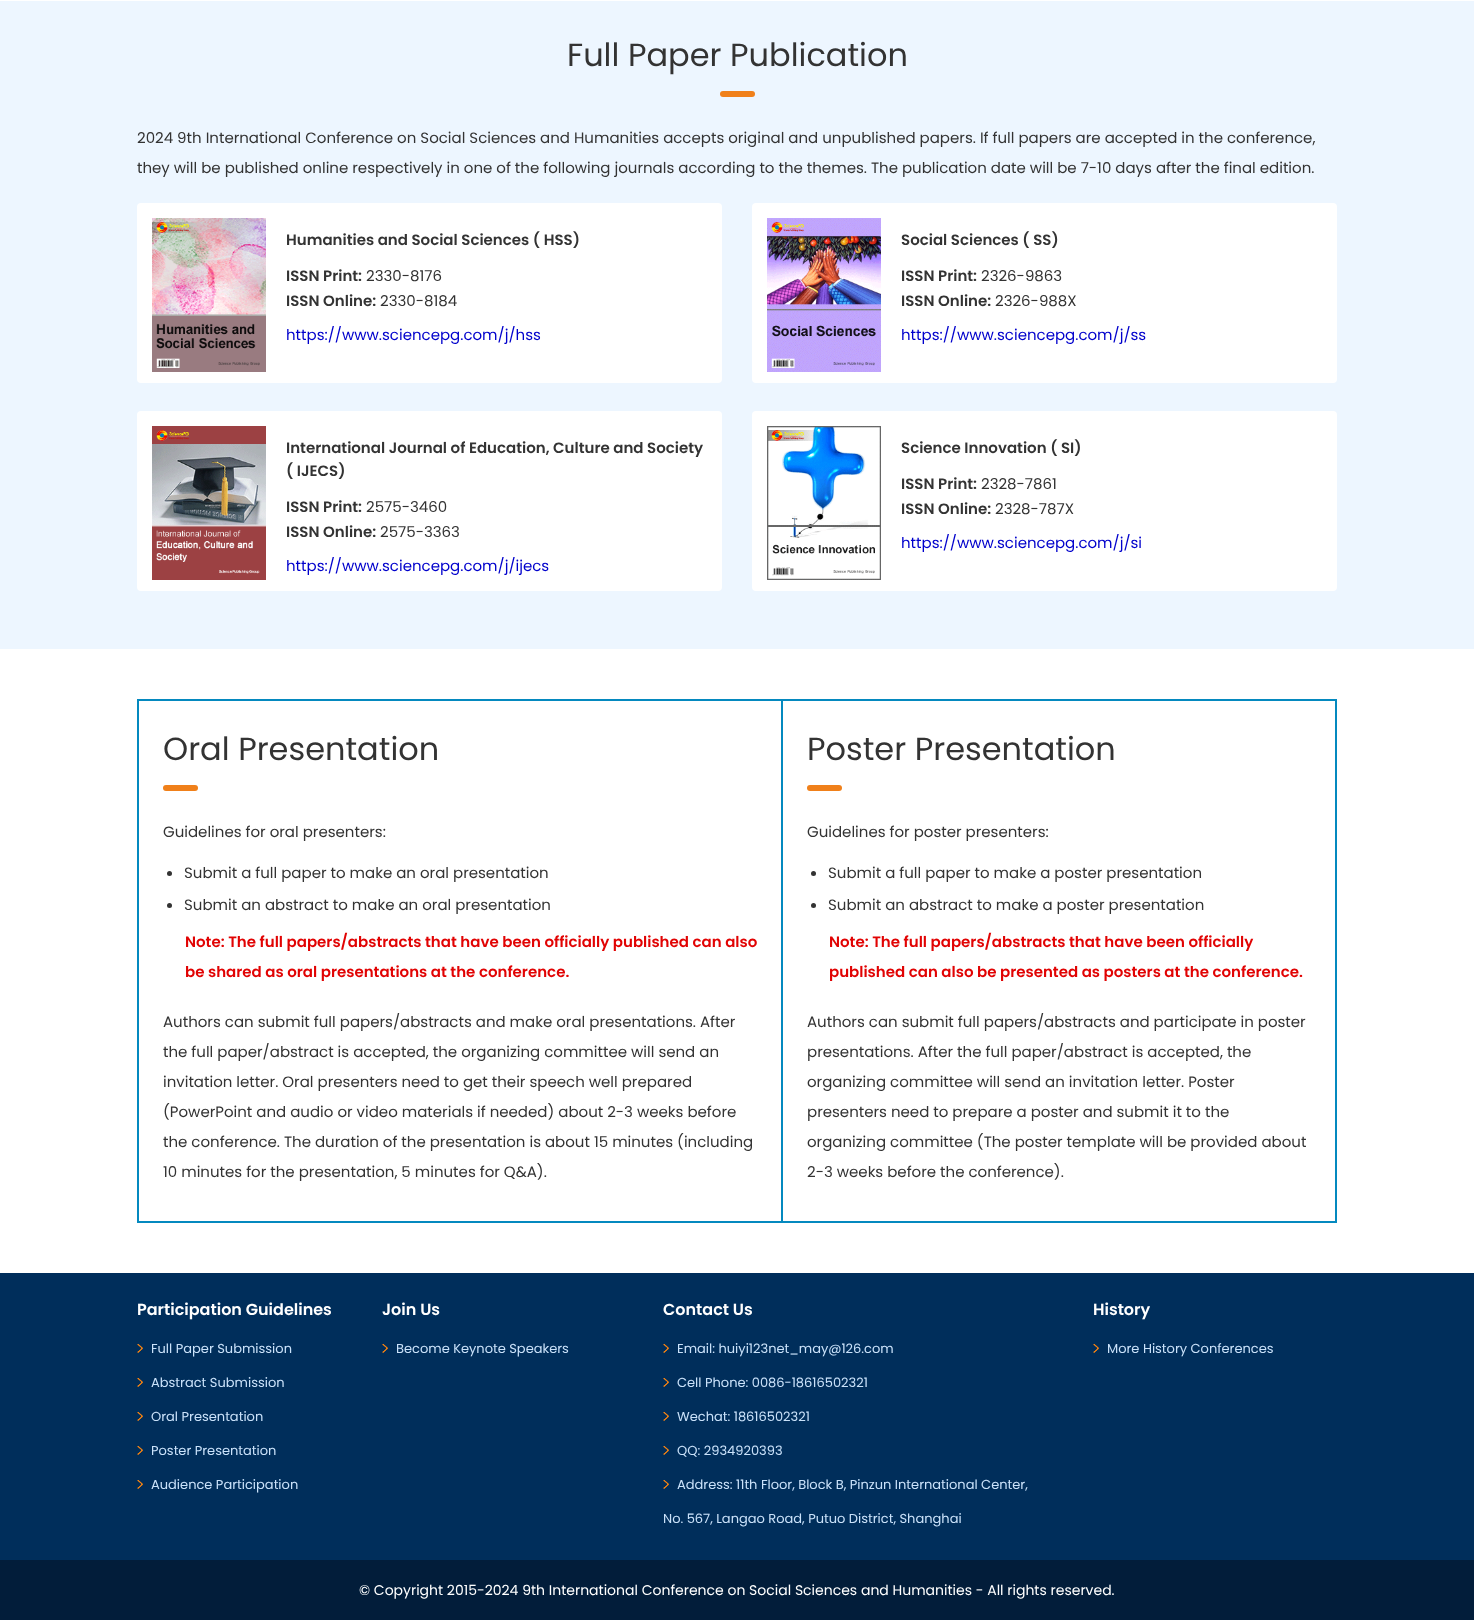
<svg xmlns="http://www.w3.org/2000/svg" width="1474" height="1620">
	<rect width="100%" height="100%" fill="#FFFFFF" />
	<rect x="0" y="1" width="1474" height="648" fill="#EDF6FF" />
	<text x="567" y="66" font-family="Poppins" font-size="32" fill="#333333">Full Paper Publication</text>
	<rect x="720" y="91" width="35" height="6" rx="3" fill="#F0801A" />
	<g font-family="Poppins" font-size="15" fill="#333333">
		<text x="137" y="143">2024 9th International Conference on Social Sciences and Humanities accepts original and unpublished papers. If full papers are accepted in the conference,</text>
		<text x="137" y="173">they will be published online respectively in one of the following journals according to the themes. The publication date will be 7-10 days after the final edition.</text>
	</g>
	<rect x="137" y="203" width="585" height="180" rx="4" fill="#FFFFFF" />
	<image x="152" y="218" width="114" height="154" href="assets/img1.png" />
	<g font-family="Poppins" font-size="15" font-weight="600" fill="#333333">
		<text x="286" y="245">Humanities and Social Sciences ( HSS)</text>
		<text x="286" y="281">ISSN Print:</text>
	</g>
	<text x="366" y="281" font-family="Poppins" font-size="15" fill="#333333">2330-8176</text>
	<text x="286" y="306" font-family="Poppins" font-size="15" font-weight="600" fill="#333333">ISSN Online:</text>
	<text x="380" y="306" font-family="Poppins" font-size="15" fill="#333333">2330-8184</text>
	<text x="286" y="340" font-family="Poppins" font-size="15" fill="#0000CC">https://www.sciencepg.com/j/hss</text>
	<rect x="752" y="203" width="585" height="180" rx="4" fill="#FFFFFF" />
	<image x="767" y="218" width="114" height="154" href="assets/img2.png" />
	<g font-family="Poppins" font-size="15" font-weight="600" fill="#333333">
		<text x="901" y="245">Social Sciences ( SS)</text>
		<text x="901" y="281">ISSN Print:</text>
	</g>
	<text x="981" y="281" font-family="Poppins" font-size="15" fill="#333333">2326-9863</text>
	<text x="901" y="306" font-family="Poppins" font-size="15" font-weight="600" fill="#333333">ISSN Online:</text>
	<text x="995" y="306" font-family="Poppins" font-size="15" fill="#333333">2326-988X</text>
	<text x="901" y="340" font-family="Poppins" font-size="15" fill="#0000CC">https://www.sciencepg.com/j/ss</text>
	<rect x="137" y="411" width="585" height="180" rx="4" fill="#FFFFFF" />
	<image x="152" y="426" width="114" height="154" href="assets/img3.png" />
	<g font-family="Poppins" font-size="15" font-weight="600" fill="#333333">
		<text x="286" y="453">International Journal of Education, Culture and Society</text>
		<text x="286" y="476">( IJECS)</text>
		<text x="286" y="512">ISSN Print:</text>
	</g>
	<text x="366" y="512" font-family="Poppins" font-size="15" fill="#333333">2575-3460</text>
	<text x="286" y="537" font-family="Poppins" font-size="15" font-weight="600" fill="#333333">ISSN Online:</text>
	<text x="380" y="537" font-family="Poppins" font-size="15" fill="#333333">2575-3363</text>
	<text x="286" y="571" font-family="Poppins" font-size="15" fill="#0000CC">https://www.sciencepg.com/j/ijecs</text>
	<rect x="752" y="411" width="585" height="180" rx="4" fill="#FFFFFF" />
	<image x="767" y="426" width="114" height="154" href="assets/img4.png" />
	<g font-family="Poppins" font-size="15" font-weight="600" fill="#333333">
		<text x="901" y="453">Science Innovation ( SI)</text>
		<text x="901" y="489">ISSN Print:</text>
	</g>
	<text x="981" y="489" font-family="Poppins" font-size="15" fill="#333333">2328-7861</text>
	<text x="901" y="514" font-family="Poppins" font-size="15" font-weight="600" fill="#333333">ISSN Online:</text>
	<text x="995" y="514" font-family="Poppins" font-size="15" fill="#333333">2328-787X</text>
	<text x="901" y="548" font-family="Poppins" font-size="15" fill="#0000CC">https://www.sciencepg.com/j/si</text>
	<rect x="138" y="700" width="1198" height="522" fill="none" stroke="#0489BF" stroke-width="2" />
	<rect x="781" y="701" width="2" height="520" fill="#0489BF" />
	<text x="163" y="760" font-family="Poppins" font-size="32" fill="#333333">Oral Presentation</text>
	<rect x="163" y="785" width="35" height="6" rx="3" fill="#F0801A" />
	<text x="163" y="837" font-family="Poppins" font-size="15" fill="#333333">Guidelines for oral presenters:</text>
	<circle cx="169.5" cy="873.5" r="2.5" fill="#333333" />
	<text x="184" y="878" font-family="Poppins" font-size="15" fill="#333333">Submit a full paper to make an oral presentation</text>
	<circle cx="169.5" cy="905.5" r="2.5" fill="#333333" />
	<text x="184" y="910" font-family="Poppins" font-size="15" fill="#333333">Submit an abstract to make an oral presentation</text>
	<g font-family="Poppins" font-size="15" font-weight="600" fill="#E10303">
		<text x="185" y="947">Note: The full papers/abstracts that have been officially published can also</text>
		<text x="185" y="977">be shared as oral presentations at the conference.</text>
	</g>
	<g font-family="Poppins" font-size="15" fill="#333333">
		<text x="163" y="1027">Authors can submit full papers/abstracts and make oral presentations. After</text>
		<text x="163" y="1057">the full paper/abstract is accepted, the organizing committee will send an</text>
		<text x="163" y="1087">invitation letter. Oral presenters need to get their speech well prepared</text>
		<text x="163" y="1117">(PowerPoint and audio or video materials if needed) about 2-3 weeks before</text>
		<text x="163" y="1147">the conference. The duration of the presentation is about 15 minutes (including</text>
		<text x="163" y="1177">10 minutes for the presentation, 5 minutes for Q&amp;A).</text>
	</g>
	<text x="807" y="760" font-family="Poppins" font-size="32" fill="#333333">Poster Presentation</text>
	<rect x="807" y="785" width="35" height="6" rx="3" fill="#F0801A" />
	<text x="807" y="837" font-family="Poppins" font-size="15" fill="#333333">Guidelines for poster presenters:</text>
	<circle cx="813.5" cy="873.5" r="2.5" fill="#333333" />
	<text x="828" y="878" font-family="Poppins" font-size="15" fill="#333333">Submit a full paper to make a poster presentation</text>
	<circle cx="813.5" cy="905.5" r="2.5" fill="#333333" />
	<text x="828" y="910" font-family="Poppins" font-size="15" fill="#333333">Submit an abstract to make a poster presentation</text>
	<g font-family="Poppins" font-size="15" font-weight="600" fill="#E10303">
		<text x="829" y="947">Note: The full papers/abstracts that have been officially</text>
		<text x="829" y="977">published can also be presented as posters at the conference.</text>
	</g>
	<g font-family="Poppins" font-size="15" fill="#333333">
		<text x="807" y="1027">Authors can submit full papers/abstracts and participate in poster</text>
		<text x="807" y="1057">presentations. After the full paper/abstract is accepted, the</text>
		<text x="807" y="1087">organizing committee will send an invitation letter. Poster</text>
		<text x="807" y="1117">presenters need to prepare a poster and submit it to the</text>
		<text x="807" y="1147">organizing committee (The poster template will be provided about</text>
		<text x="807" y="1177">2-3 weeks before the conference).</text>
	</g>
	<rect x="0" y="1273" width="1474" height="287" fill="#002E5B" />
	<text x="137" y="1315" font-family="Poppins" font-size="16" font-weight="600" fill="#FFFFFF">Participation Guidelines</text>
	<image x="137" y="1344" width="6" height="9" href="assets/img5.png" />
	<text x="151" y="1353" font-family="Poppins" font-size="13" fill="#CAE2FA">Full Paper Submission</text>
	<image x="137" y="1378" width="6" height="9" href="assets/img5.png" />
	<text x="151" y="1387" font-family="Poppins" font-size="13" fill="#CAE2FA">Abstract Submission</text>
	<image x="137" y="1412" width="6" height="9" href="assets/img5.png" />
	<text x="151" y="1421" font-family="Poppins" font-size="13" fill="#CAE2FA">Oral Presentation</text>
	<image x="137" y="1446" width="6" height="9" href="assets/img5.png" />
	<text x="151" y="1455" font-family="Poppins" font-size="13" fill="#CAE2FA">Poster Presentation</text>
	<image x="137" y="1480" width="6" height="9" href="assets/img5.png" />
	<text x="151" y="1489" font-family="Poppins" font-size="13" fill="#CAE2FA">Audience Participation</text>
	<text x="382" y="1315" font-family="Poppins" font-size="16" font-weight="600" fill="#FFFFFF">Join Us</text>
	<image x="382" y="1344" width="6" height="9" href="assets/img5.png" />
	<text x="396" y="1353" font-family="Poppins" font-size="13" fill="#CAE2FA">Become Keynote Speakers</text>
	<text x="663" y="1315" font-family="Poppins" font-size="16" font-weight="600" fill="#FFFFFF">Contact Us</text>
	<image x="663" y="1344" width="6" height="9" href="assets/img5.png" />
	<text x="677" y="1353" font-family="Poppins" font-size="13" fill="#CAE2FA">Email: huiyi123net_may@126.com</text>
	<image x="663" y="1378" width="6" height="9" href="assets/img5.png" />
	<text x="677" y="1387" font-family="Poppins" font-size="13" fill="#CAE2FA">Cell Phone: 0086-18616502321</text>
	<image x="663" y="1412" width="6" height="9" href="assets/img5.png" />
	<text x="677" y="1421" font-family="Poppins" font-size="13" fill="#CAE2FA">Wechat: 18616502321</text>
	<image x="663" y="1446" width="6" height="9" href="assets/img5.png" />
	<text x="677" y="1455" font-family="Poppins" font-size="13" fill="#CAE2FA">QQ: 2934920393</text>
	<image x="663" y="1480" width="6" height="9" href="assets/img5.png" />
	<g font-family="Poppins" font-size="13" fill="#CAE2FA">
		<text x="677" y="1489">Address: 11th Floor, Block B, Pinzun International Center,</text>
		<text x="663" y="1523">No. 567, Langao Road, Putuo District, Shanghai</text>
	</g>
	<text x="1093" y="1315" font-family="Poppins" font-size="16" font-weight="600" fill="#FFFFFF">History</text>
	<image x="1093" y="1344" width="6" height="9" href="assets/img5.png" />
	<text x="1107" y="1353" font-family="Poppins" font-size="13" fill="#CAE2FA">More History Conferences</text>
	<rect x="0" y="1560" width="1474" height="60" fill="#021D3A" />
	<text x="359" y="1595" font-family="Poppins" font-size="14" fill="#FFFFFF">© Copyright 2015-2024 9th International Conference on Social Sciences and Humanities - All rights reserved.</text>
</svg>
